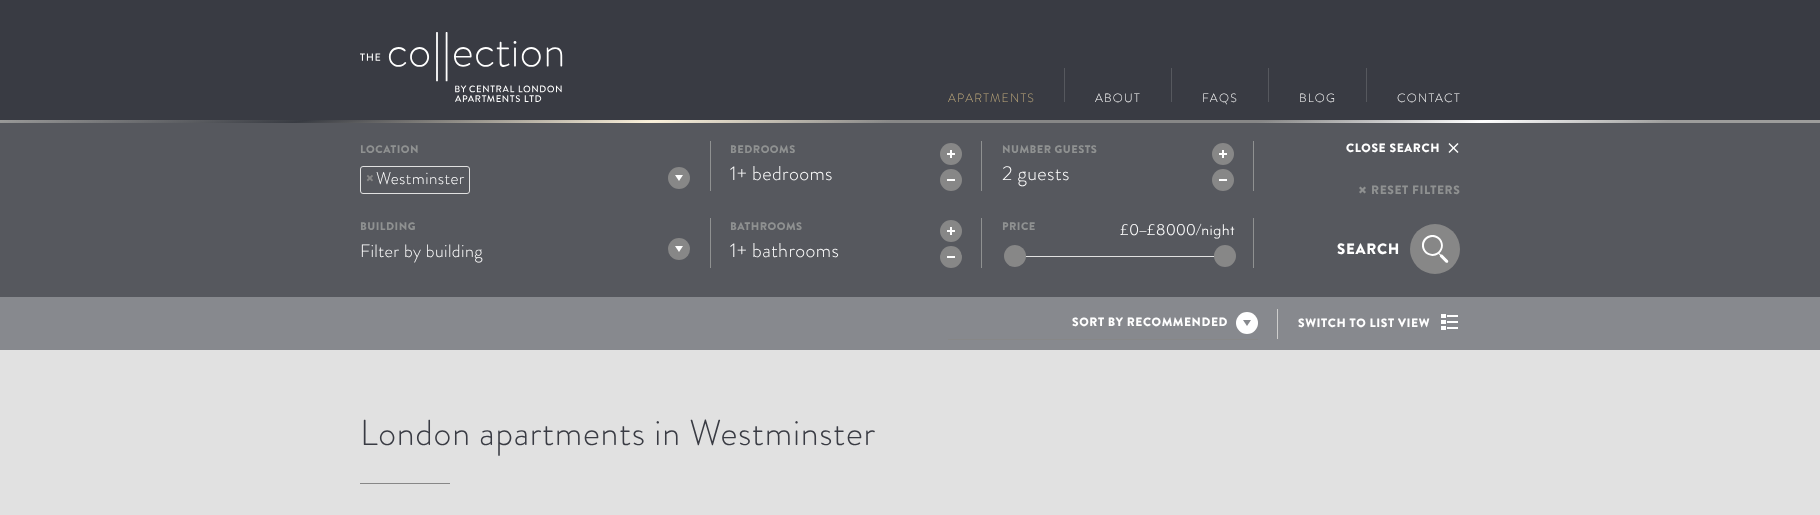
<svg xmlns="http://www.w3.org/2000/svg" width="1820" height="515">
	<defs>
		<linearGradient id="g1" gradientUnits="userSpaceOnUse" x1="943" y1="293" x2="877" y2="-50"><stop offset="0.09" stop-color="#9D9D9C" /><stop offset="0.19" stop-color="#FFFFFF" /><stop offset="0.31" stop-color="#878787" /><stop offset="0.51" stop-color="#878787" /><stop offset="0.64" stop-color="#FBF1DB" /><stop offset="0.83" stop-color="#383B42" /><stop offset="1" stop-color="#9D9D9C" /></linearGradient>
	</defs>
	<rect width="100%" height="100%" fill="#E1E1E1" />
	<rect x="0" y="0" width="1820" height="120" fill="#393B43" />
	<image x="360" y="32" width="203" height="70" href="assets/img1.png" />
	<text x="948" y="102" font-family="Brandon Grotesque" font-size="12" font-weight="300" letter-spacing="1.25" fill="#BFAA7C">APARTMENTS</text>
	<rect x="1064" y="68" width="1" height="34" fill="#56585E" />
	<text x="1095" y="102" font-family="Brandon Grotesque" font-size="12" font-weight="300" letter-spacing="1.25" fill="#FFFFFF">ABOUT</text>
	<rect x="1171" y="68" width="1" height="34" fill="#56585E" />
	<text x="1202" y="102" font-family="Brandon Grotesque" font-size="12" font-weight="300" letter-spacing="1.25" fill="#FFFFFF">FAQS</text>
	<rect x="1268" y="68" width="1" height="34" fill="#56585E" />
	<text x="1299" y="102" font-family="Brandon Grotesque" font-size="12" font-weight="300" letter-spacing="1.25" fill="#FFFFFF">BLOG</text>
	<rect x="1366" y="68" width="1" height="34" fill="#56585E" />
	<text x="1397" y="102" font-family="Brandon Grotesque" font-size="12" font-weight="300" letter-spacing="1.25" fill="#FFFFFF">CONTACT</text>
	<rect x="0" y="120" width="1820" height="3" fill="url(#g1)" />
	<rect x="0" y="123" width="1820" height="174" fill="#56585E" />
	<text x="360" y="153" font-family="Brandon Grotesque" font-size="11" font-weight="900" letter-spacing="0.5" fill="#8F9191">LOCATION</text>
	<rect x="360.5" y="166.5" width="109" height="27" rx="2.5" fill="none" stroke="#E1E1E1" />
	<text x="366" y="184" font-family="Brandon Grotesque" font-size="17" font-weight="900" letter-spacing="0.4" fill="#878787">×</text>
	<text x="376" y="184" font-family="Brandon Grotesque" font-size="17" font-weight="300" letter-spacing="0.4" fill="#FFFFFF">Westminster</text>
	<circle cx="679" cy="178" r="11" fill="#878787" />
	<path d="M675 175H683L679 181Z" fill="#FFFFFF" />
	<rect x="710" y="141" width="1" height="50" fill="#8F9191" />
	<text x="730" y="153" font-family="Brandon Grotesque" font-size="11" font-weight="900" letter-spacing="0.5" fill="#8F9191">BEDROOMS</text>
	<circle cx="951" cy="154" r="11" fill="#878787" />
	<rect x="947" y="153" width="8" height="2" fill="#FFFFFF" />
	<rect x="950" y="150" width="2" height="8" fill="#FFFFFF" />
	<rect x="981" y="141" width="1" height="50" fill="#8F9191" />
	<text x="730" y="180" font-family="Brandon Grotesque" font-size="20" font-weight="300" letter-spacing="0.4" fill="#FFFFFF">1+ bedrooms</text>
	<circle cx="951" cy="180" r="11" fill="#878787" />
	<rect x="947" y="179" width="8" height="2" fill="#FFFFFF" />
	<text x="1002" y="153" font-family="Brandon Grotesque" font-size="11" font-weight="900" letter-spacing="0.5" fill="#8F9191">NUMBER GUESTS</text>
	<circle cx="1223" cy="154" r="11" fill="#878787" />
	<rect x="1219" y="153" width="8" height="2" fill="#FFFFFF" />
	<rect x="1222" y="150" width="2" height="8" fill="#FFFFFF" />
	<rect x="1253" y="141" width="1" height="50" fill="#8F9191" />
	<text x="1002" y="180" font-family="Brandon Grotesque" font-size="20" font-weight="300" letter-spacing="0.4" fill="#FFFFFF">2 guests</text>
	<circle cx="1223" cy="180" r="11" fill="#878787" />
	<rect x="1219" y="179" width="8" height="2" fill="#FFFFFF" />
	<text x="1346" y="152" font-family="Brandon Grotesque" font-size="12" font-weight="900" letter-spacing="0.6" fill="#FFFFFF">CLOSE SEARCH</text>
	<path d="M1449.5 143L1458.5 152L1457.5 153L1448.5 144Z" fill="#FFFFFF" />
	<path d="M1448.5 152L1457.5 143L1458.5 144L1449.5 153Z" fill="#FFFFFF" />
	<path d="M1360.5 186.5L1366 192L1364.5 193.5L1359 188Z" fill="#8F9191" />
	<text x="1371" y="194" font-family="Brandon Grotesque" font-size="12" font-weight="900" letter-spacing="0.6" fill="#8F9191">RESET FILTERS</text>
	<path d="M1359 192L1364.5 186.5L1366 188L1360.5 193.5Z" fill="#8F9191" />
	<text x="360" y="230" font-family="Brandon Grotesque" font-size="11" font-weight="900" letter-spacing="0.5" fill="#8F9191">BUILDING</text>
	<text x="360" y="257" font-family="Brandon Grotesque" font-size="18" font-weight="300" letter-spacing="0.4" fill="#FFFFFF">Filter by building</text>
	<circle cx="679" cy="249" r="11" fill="#878787" />
	<path d="M675 246H683L679 252Z" fill="#FFFFFF" />
	<rect x="710" y="218" width="1" height="50" fill="#8F9191" />
	<text x="730" y="230" font-family="Brandon Grotesque" font-size="11" font-weight="900" letter-spacing="0.5" fill="#8F9191">BATHROOMS</text>
	<circle cx="951" cy="231" r="11" fill="#878787" />
	<rect x="947" y="230" width="8" height="2" fill="#FFFFFF" />
	<rect x="950" y="227" width="2" height="8" fill="#FFFFFF" />
	<rect x="981" y="218" width="1" height="50" fill="#8F9191" />
	<text x="730" y="257" font-family="Brandon Grotesque" font-size="20" font-weight="300" letter-spacing="0.4" fill="#FFFFFF">1+ bathrooms</text>
	<circle cx="951" cy="257" r="11" fill="#878787" />
	<rect x="947" y="256" width="8" height="2" fill="#FFFFFF" />
	<text x="1002" y="230" font-family="Brandon Grotesque" font-size="11" font-weight="900" letter-spacing="0.5" fill="#8F9191">PRICE</text>
	<text x="1120" y="235" font-family="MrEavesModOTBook" font-size="18" letter-spacing="0.4" fill="#FFFFFF">£0–£8000/night</text>
	<rect x="1253" y="218" width="1" height="50" fill="#8F9191" />
	<rect x="1025" y="256" width="198" height="1" fill="#E1E1E1" />
	<circle cx="1015" cy="256" r="11" fill="#878787" />
	<circle cx="1225" cy="256" r="11" fill="#878787" />
	<circle cx="1435" cy="249" r="25" fill="#878787" />
	<text x="1337" y="254" font-family="Brandon Grotesque" font-size="15" font-weight="900" letter-spacing="0.75" fill="#FFFFFF">SEARCH</text>
	<image x="1422" y="235" width="27" height="28" href="assets/img2.png" />
	<rect x="0" y="297" width="1820" height="53" fill="#87898E" />
	<rect x="948" y="339" width="310" height="1" fill="#878787" />
	<text x="1072" y="326" font-family="Brandon Grotesque" font-size="12" font-weight="900" letter-spacing="0.6" fill="#FFFFFF">SORT BY RECOMMENDED</text>
	<circle cx="1247" cy="323" r="11" fill="#FFFFFF" />
	<path d="M1243 320H1251L1247 326Z" fill="#87898E" />
	<rect x="1277" y="309" width="1" height="30" fill="#CECECD" />
	<text x="1298" y="327" font-family="Brandon Grotesque" font-size="12" font-weight="900" letter-spacing="0.6" fill="#FFFFFF">SWITCH TO LIST VIEW</text>
	<image x="1441" y="314" width="17" height="16" href="assets/img3.png" />
	<text x="360" y="445" font-family="Brandon Grotesque" font-size="36" font-weight="300" letter-spacing="0.75" fill="#393B43">London apartments in Westminster</text>
	<rect x="360" y="483" width="90" height="1" fill="#878787" />
</svg>
